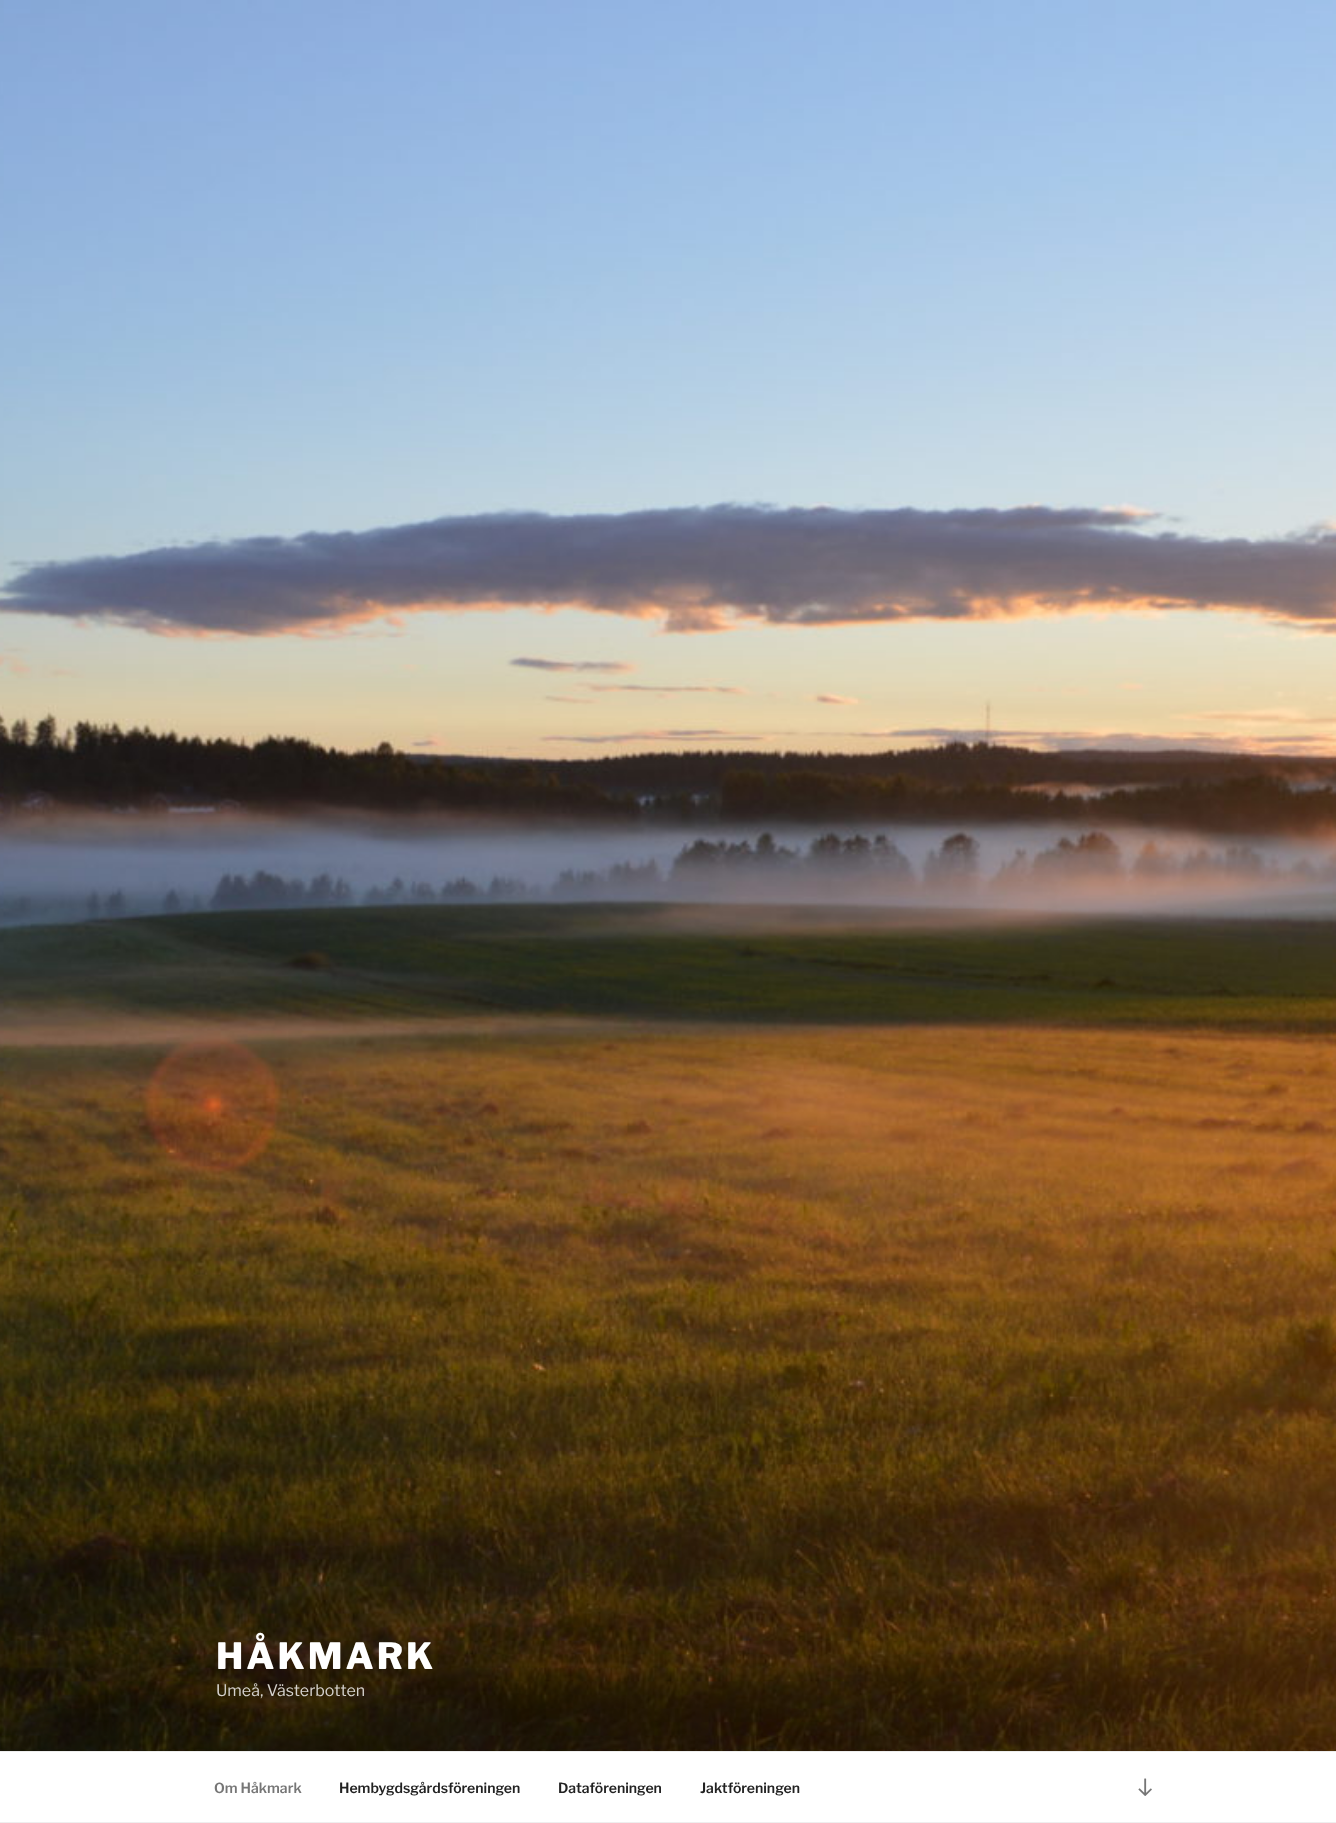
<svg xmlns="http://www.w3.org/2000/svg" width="1336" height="1823">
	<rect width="100%" height="100%" fill="#FFFFFF" />
	<image x="0" y="0" width="1336" height="1751" href="assets/img1.png" />
	<text x="216" y="1669" font-family="Libre Franklin" font-size="36" font-weight="800" letter-spacing="3" fill="#FFFFFF">HÅKMARK</text>
	<text x="216" y="1696" font-family="Libre Franklin" font-size="16" fill="#D5D2CD">Umeå, Västerbotten</text>
	<rect x="0" y="1751" width="1336" height="1" fill="#EEEEEE" />
	<rect x="0" y="1822" width="1336" height="1" fill="#EEEEEE" />
	<text x="214" y="1793" font-family="Libre Franklin" font-size="14" font-weight="600" fill="#767676">Om Håkmark</text>
	<g font-family="Libre Franklin" font-size="14" font-weight="600" fill="#222222">
		<text x="339" y="1793">Hembygdsgårdsföreningen</text>
		<text x="558" y="1793">Dataföreningen</text>
		<text x="700" y="1793">Jaktföreningen</text>
	</g>
	<image x="1138" y="1778" width="14" height="18" href="assets/img2.png" />
</svg>
